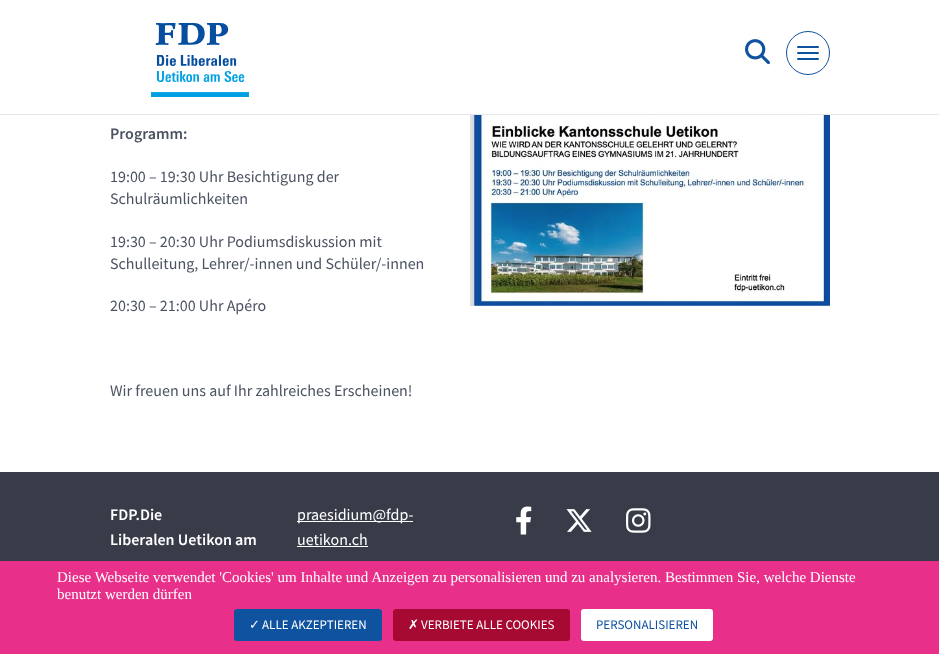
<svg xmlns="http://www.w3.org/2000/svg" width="939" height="654">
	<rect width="100%" height="100%" fill="#373C48" />
	<rect x="0" y="0" width="939" height="114" fill="#FFFFFF" />
	<rect x="0" y="114" width="939" height="1" fill="#E6E6E6" />
	<image x="151" y="23" width="98" height="74" href="assets/img1.png" />
	<image x="745" y="39" width="25" height="26" href="assets/img2.png" />
	<circle cx="808" cy="53" r="21.5" fill="none" stroke="#0E52A0" />
	<rect x="797" y="46" width="22" height="2" rx="1" fill="#0E52A0" />
	<rect x="797" y="52" width="22" height="2" rx="1" fill="#0E52A0" />
	<rect x="797" y="58" width="22" height="2" rx="1" fill="#0E52A0" />
	<rect x="0" y="115" width="939" height="357" fill="#FFFFFF" />
	<text x="110" y="139" font-family="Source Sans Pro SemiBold" font-size="16" font-weight="600" fill="#4B5261">Programm:</text>
	<g font-family="Source Sans Pro" font-size="16" fill="#4B5261">
		<text x="110" y="182">19:00 – 19:30 Uhr Besichtigung der</text>
		<text x="110" y="204">Schulräumlichkeiten</text>
		<text x="110" y="247">19:30 – 20:30 Uhr Podiumsdiskussion mit</text>
		<text x="110" y="269">Schulleitung, Lehrer/-innen und Schüler/-innen</text>
		<text x="110" y="311">20:30 – 21:00 Uhr Apéro</text>
		<text x="110" y="396">Wir freuen uns auf Ihr zahlreiches Erscheinen!</text>
	</g>
	<image x="470" y="115" width="360" height="191" href="assets/img3.png" />
	<g font-family="Source Sans Pro SemiBold" font-size="16" font-weight="600" fill="#FFFFFF">
		<text x="110" y="520">FDP.Die</text>
		<text x="110" y="545">Liberalen Uetikon am</text>
	</g>
	<rect x="297" y="521" width="116" height="1" fill="#FFFFFF" />
	<g font-family="Source Sans Pro" font-size="16" fill="#FFFFFF">
		<text x="297" y="520">praesidium@fdp-</text>
		<text x="297" y="545">uetikon.ch</text>
	</g>
	<rect x="297" y="546" width="71" height="1" fill="#FFFFFF" />
	<image x="516" y="506" width="16" height="29" href="assets/img4.png" />
	<image x="566" y="509" width="26" height="23" href="assets/img5.png" />
	<image x="626" y="508" width="25" height="25" href="assets/img6.png" />
	<rect x="0" y="561" width="939" height="93" fill="#E8308A" />
	<g font-family="Liberation Serif" font-size="15" fill="#FFFFFF">
		<text x="57" y="582">Diese Webseite verwendet 'Cookies' um Inhalte und Anzeigen zu personalisieren und zu analysieren. Bestimmen Sie, welche Dienste</text>
		<text x="57" y="599">benutzt werden dürfen</text>
	</g>
	<rect x="234" y="609" width="148" height="32" rx="3" fill="#0E52A0" />
	<text x="249" y="629" font-family="DejaVu Sans" font-size="13" fill="#FFFFFF">✓</text>
	<text x="262" y="629" font-family="Source Sans Pro" font-size="13" fill="#FFFFFF">ALLE AKZEPTIEREN</text>
	<rect x="393" y="609" width="177" height="32" rx="3" fill="#A60A33" />
	<text x="408" y="629" font-family="DejaVu Sans" font-size="13" fill="#FFFFFF">✗</text>
	<text x="421" y="629" font-family="Source Sans Pro" font-size="13" fill="#FFFFFF">VERBIETE ALLE COOKIES</text>
	<rect x="581" y="609" width="132" height="32" rx="3" fill="#FFFFFF" />
	<text x="596" y="629" font-family="Source Sans Pro" font-size="13" fill="#0E52A0">PERSONALISIEREN</text>
</svg>
